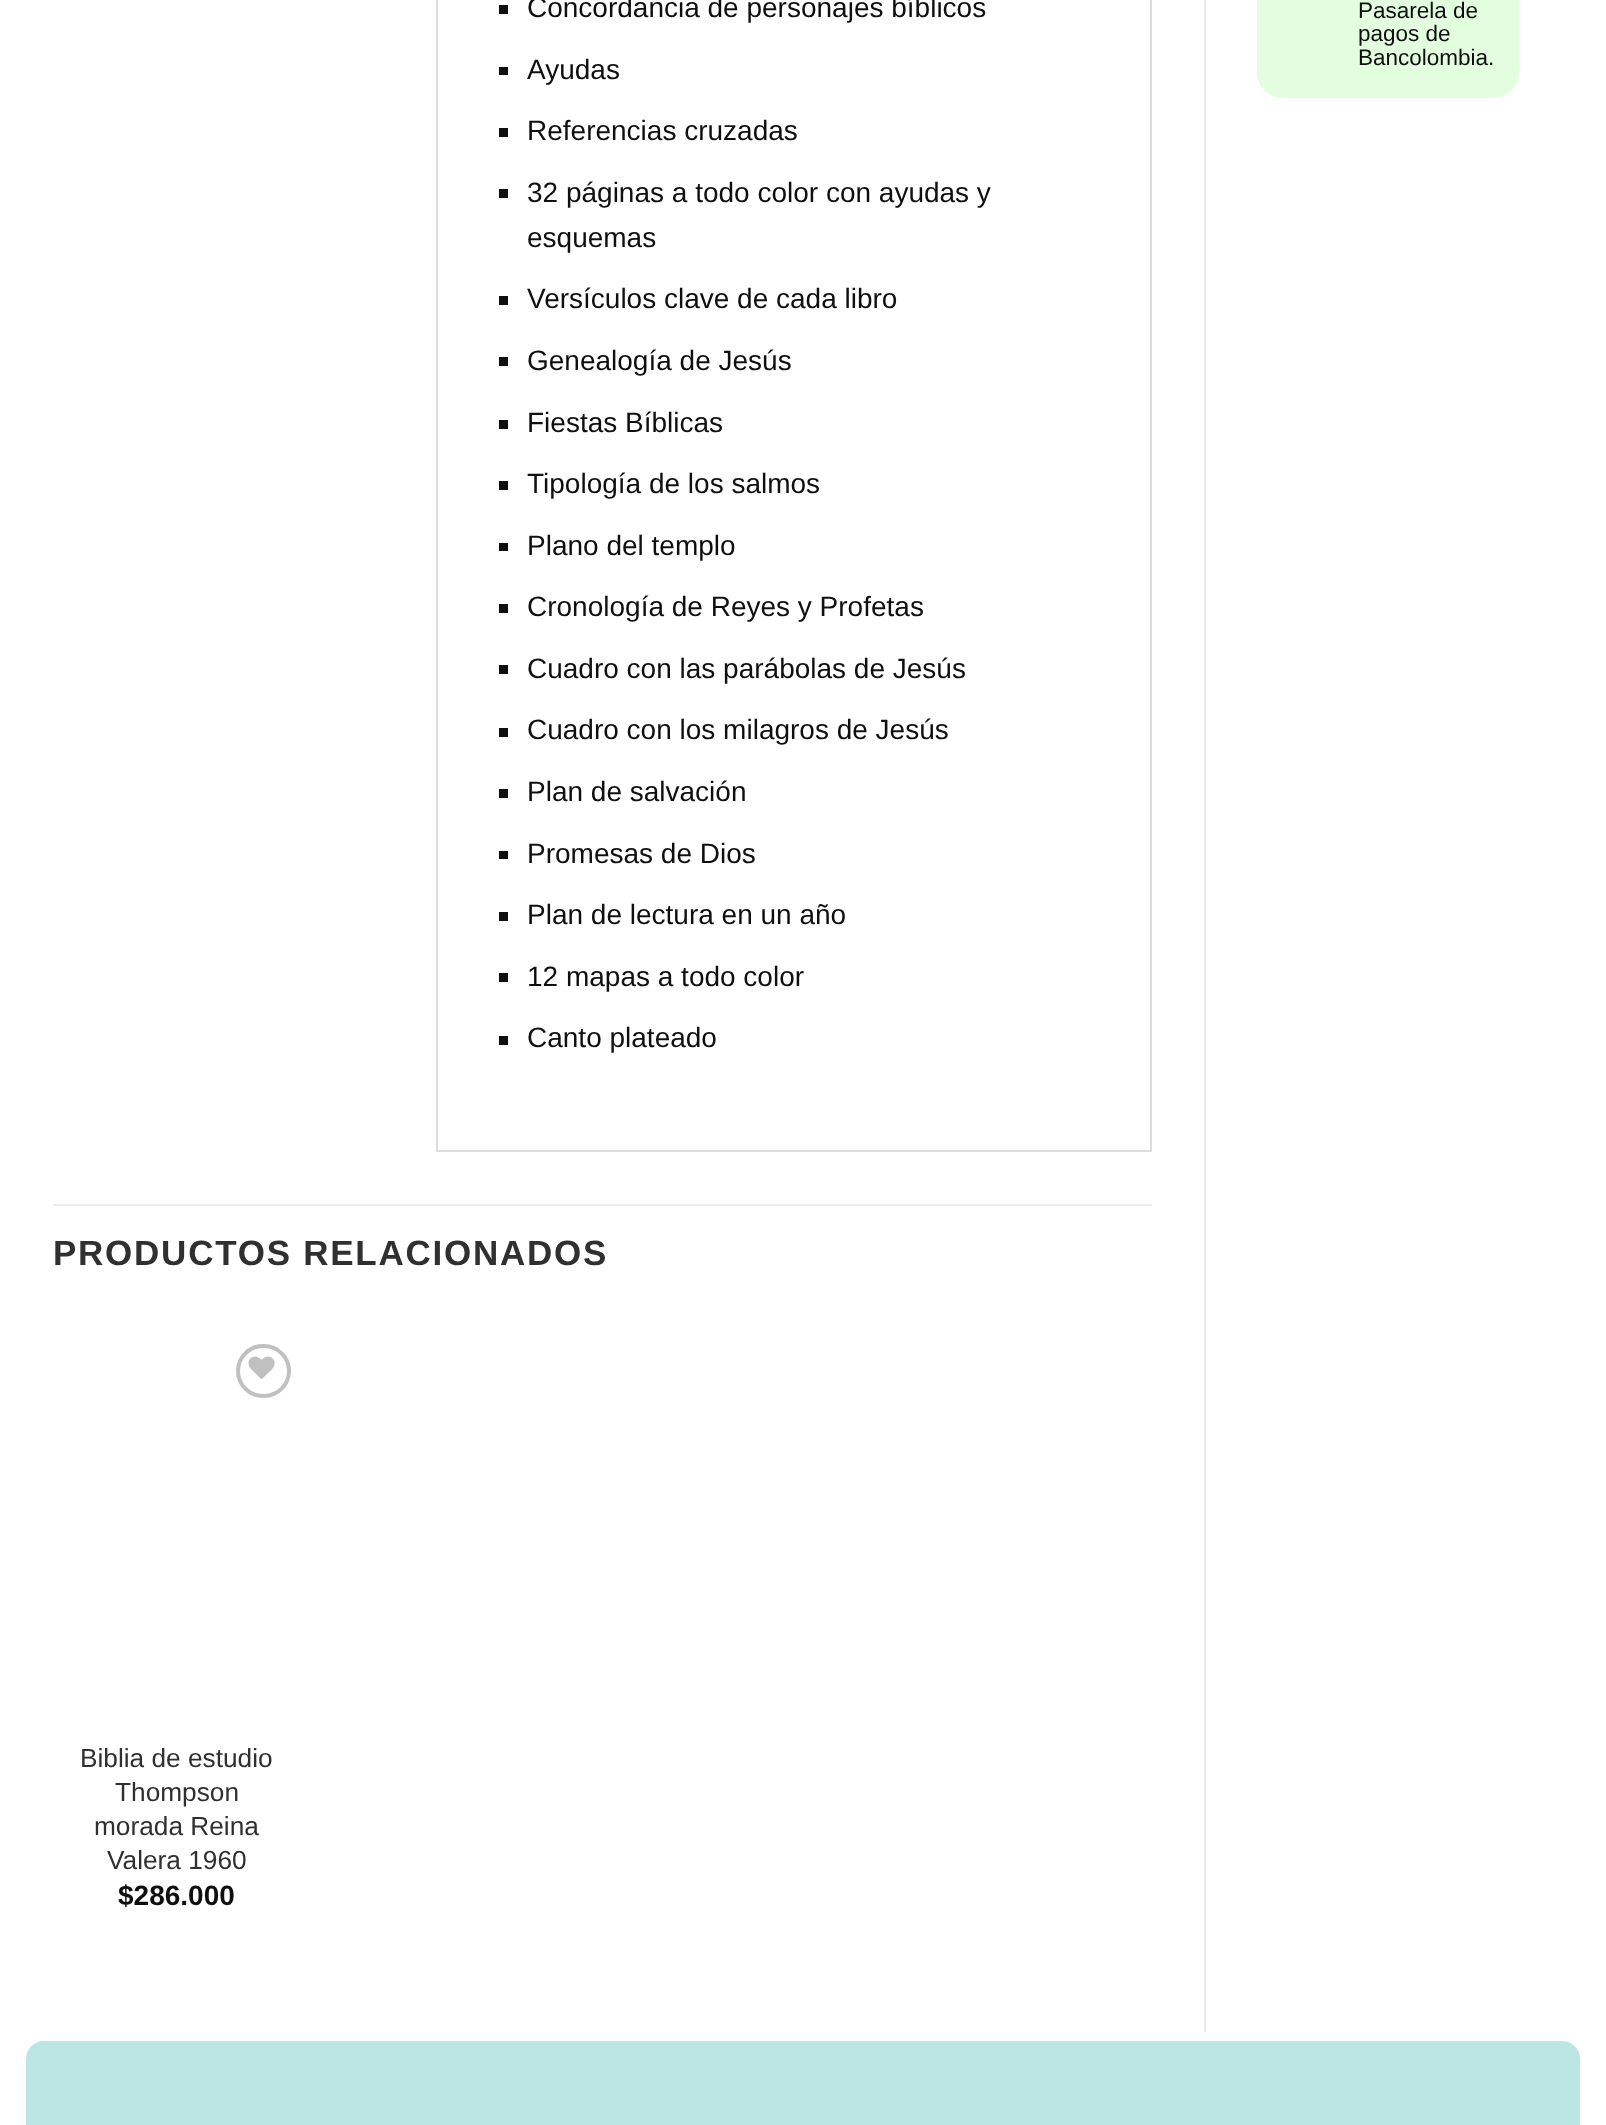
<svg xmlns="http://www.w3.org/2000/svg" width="1606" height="2125">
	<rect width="100%" height="100%" fill="#FFFFFF" />
	<rect x="1204" y="0" width="2" height="2032" fill="#ECECEC" />
	<rect x="437" y="-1" width="714" height="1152" fill="none" stroke="#DDDDDD" stroke-width="2" />
	<rect x="499" y="5" width="9" height="9" fill="#0F0F0F" />
	<text x="527" y="17" font-family="Liberation Sans" font-size="28" fill="#0F0F0F">Concordancia de personajes bíblicos</text>
	<rect x="499" y="67" width="9" height="8" fill="#0F0F0F" />
	<text x="527" y="79" font-family="Liberation Sans" font-size="28" fill="#0F0F0F">Ayudas</text>
	<rect x="499" y="128" width="9" height="9" fill="#0F0F0F" />
	<text x="527" y="140" font-family="Liberation Sans" font-size="28" fill="#0F0F0F">Referencias cruzadas</text>
	<rect x="499" y="189" width="9" height="9" fill="#0F0F0F" />
	<g font-family="Liberation Sans" font-size="28" fill="#0F0F0F">
		<text x="527" y="202">32 páginas a todo color con ayudas y</text>
		<text x="527" y="247">esquemas</text>
	</g>
	<rect x="499" y="296" width="9" height="9" fill="#0F0F0F" />
	<text x="527" y="308" font-family="Liberation Sans" font-size="28" fill="#0F0F0F">Versículos clave de cada libro</text>
	<rect x="499" y="357" width="9" height="9" fill="#0F0F0F" />
	<text x="527" y="370" font-family="Liberation Sans" font-size="28" fill="#0F0F0F">Genealogía de Jesús</text>
	<rect x="499" y="420" width="9" height="9" fill="#0F0F0F" />
	<text x="527" y="432" font-family="Liberation Sans" font-size="28" fill="#0F0F0F">Fiestas Bíblicas</text>
	<rect x="499" y="481" width="9" height="9" fill="#0F0F0F" />
	<text x="527" y="493" font-family="Liberation Sans" font-size="28" fill="#0F0F0F">Tipología de los salmos</text>
	<rect x="499" y="543" width="9" height="8" fill="#0F0F0F" />
	<text x="527" y="555" font-family="Liberation Sans" font-size="28" fill="#0F0F0F">Plano del templo</text>
	<rect x="499" y="604" width="9" height="9" fill="#0F0F0F" />
	<text x="527" y="616" font-family="Liberation Sans" font-size="28" fill="#0F0F0F">Cronología de Reyes y Profetas</text>
	<rect x="499" y="665" width="9" height="9" fill="#0F0F0F" />
	<text x="527" y="678" font-family="Liberation Sans" font-size="28" fill="#0F0F0F">Cuadro con las parábolas de Jesús</text>
	<rect x="499" y="728" width="9" height="9" fill="#0F0F0F" />
	<text x="527" y="739" font-family="Liberation Sans" font-size="28" fill="#0F0F0F">Cuadro con los milagros de Jesús</text>
	<rect x="499" y="789" width="9" height="9" fill="#0F0F0F" />
	<text x="527" y="801" font-family="Liberation Sans" font-size="28" fill="#0F0F0F">Plan de salvación</text>
	<rect x="499" y="851" width="9" height="8" fill="#0F0F0F" />
	<text x="527" y="863" font-family="Liberation Sans" font-size="28" fill="#0F0F0F">Promesas de Dios</text>
	<rect x="499" y="912" width="9" height="9" fill="#0F0F0F" />
	<text x="527" y="924" font-family="Liberation Sans" font-size="28" fill="#0F0F0F">Plan de lectura en un año</text>
	<rect x="499" y="973" width="9" height="9" fill="#0F0F0F" />
	<text x="527" y="986" font-family="Liberation Sans" font-size="28" fill="#0F0F0F">12 mapas a todo color</text>
	<rect x="499" y="1036" width="9" height="9" fill="#0F0F0F" />
	<text x="527" y="1047" font-family="Liberation Sans" font-size="28" fill="#0F0F0F">Canto plateado</text>
	<rect x="53" y="1204" width="1099" height="2" fill="#ECECEC" />
	<text x="53" y="1265" font-family="Liberation Sans" font-size="35" font-weight="700" letter-spacing="1.75" fill="#303030">PRODUCTOS RELACIONADOS</text>
	<rect x="238" y="1346" width="51" height="50" rx="25" fill="none" stroke="#C0C0C0" stroke-width="4" />
	<image x="248" y="1356" width="27" height="23" href="assets/img1.png" />
	<g font-family="Liberation Sans" font-size="26.25" fill="#303030">
		<text x="80" y="1767">Biblia de estudio</text>
		<text x="115" y="1801">Thompson</text>
		<text x="94" y="1835">morada Reina</text>
		<text x="107" y="1869">Valera 1960</text>
	</g>
	<text x="118" y="1905" font-family="Liberation Sans" font-size="28" font-weight="700" fill="#0F0F0F">$286.000</text>
	<rect x="1257" y="-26" width="262" height="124" rx="26" fill="#E3FEDF" />
	<g font-family="Liberation Sans" font-size="22.5" fill="#0F0F0F">
		<text x="1358" y="18">Pasarela de</text>
		<text x="1358" y="41">pagos de</text>
		<text x="1358" y="65">Bancolombia.</text>
	</g>
	<rect x="26" y="2041" width="1554" height="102" rx="18" fill="#BBE6E4" />
</svg>
